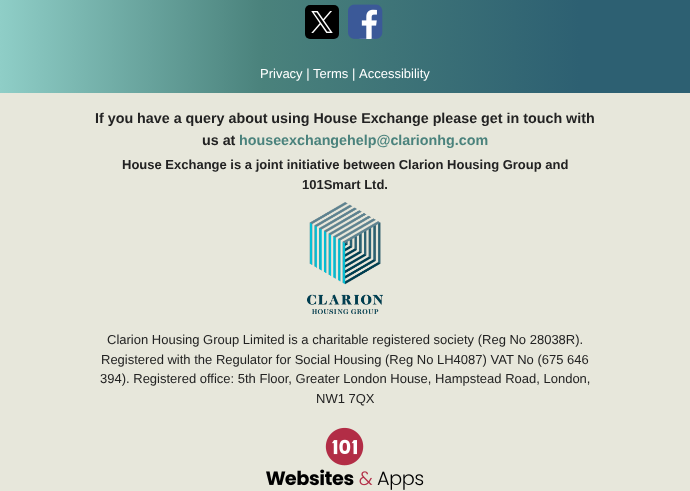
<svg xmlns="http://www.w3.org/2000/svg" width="690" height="491">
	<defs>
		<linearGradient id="g1" gradientUnits="userSpaceOnUse" x1="0" y1="43" x2="690" y2="42"><stop offset="0" stop-color="#8FCEC7" /><stop offset="0.38" stop-color="#4A827C" /><stop offset="0.84" stop-color="#2D6072" /></linearGradient>
	</defs>
	<rect width="100%" height="100%" fill="#E7E7DB" />
	<rect x="0" y="0" width="690" height="93" fill="url(#g1)" />
	<rect x="305" y="5" width="34" height="34" rx="5" fill="#000000" />
	<path d="M364 7H372C376.5 7 380 10.5 380 15V29C380 34.5 375.5 39 370 39H364C355 39 348 32 348 23C348 14 355 7 364 7Z" fill="#FFFFFF" />
	<image x="348" y="4" width="35" height="35" href="assets/img1.png" />
	<image x="311" y="11" width="22" height="22" href="assets/img2.png" />
	<g font-family="Liberation Sans" font-size="13" fill="#FFFFFF">
		<text x="260" y="78">Privacy | Terms</text>
		<text x="352" y="78">|</text>
		<text x="359" y="78">Accessibility</text>
	</g>
	<g font-family="Liberation Sans" font-size="14.3" font-weight="700" fill="#222222">
		<text x="95" y="123">If you have a query about using House Exchange please get in touch with</text>
		<text x="202" y="145">us at</text>
	</g>
	<text x="239" y="145" font-family="Liberation Sans" font-size="14.3" font-weight="700" fill="#4A827C">houseexchangehelp@clarionhg.com</text>
	<g font-family="Liberation Sans" font-size="13" font-weight="700" fill="#222222">
		<text x="122" y="169">House Exchange is a joint initiative between Clarion Housing Group and</text>
		<text x="302" y="189">101Smart Ltd.</text>
	</g>
	<image x="307" y="202" width="76" height="112" href="assets/img3.png" />
	<g font-family="Liberation Sans" font-size="13" fill="#222222">
		<text x="107" y="344">Clarion Housing Group Limited is a charitable registered society (Reg No 28038R).</text>
		<text x="101" y="364">Registered with the Regulator for Social Housing (Reg No LH4087) VAT No (675 646</text>
		<text x="100" y="383">394). Registered office: 5th Floor, Greater London House, Hampstead Road, London,</text>
		<text x="316" y="403">NW1 7QX</text>
	</g>
	<image x="266" y="427" width="158" height="63" href="assets/img4.png" />
</svg>
